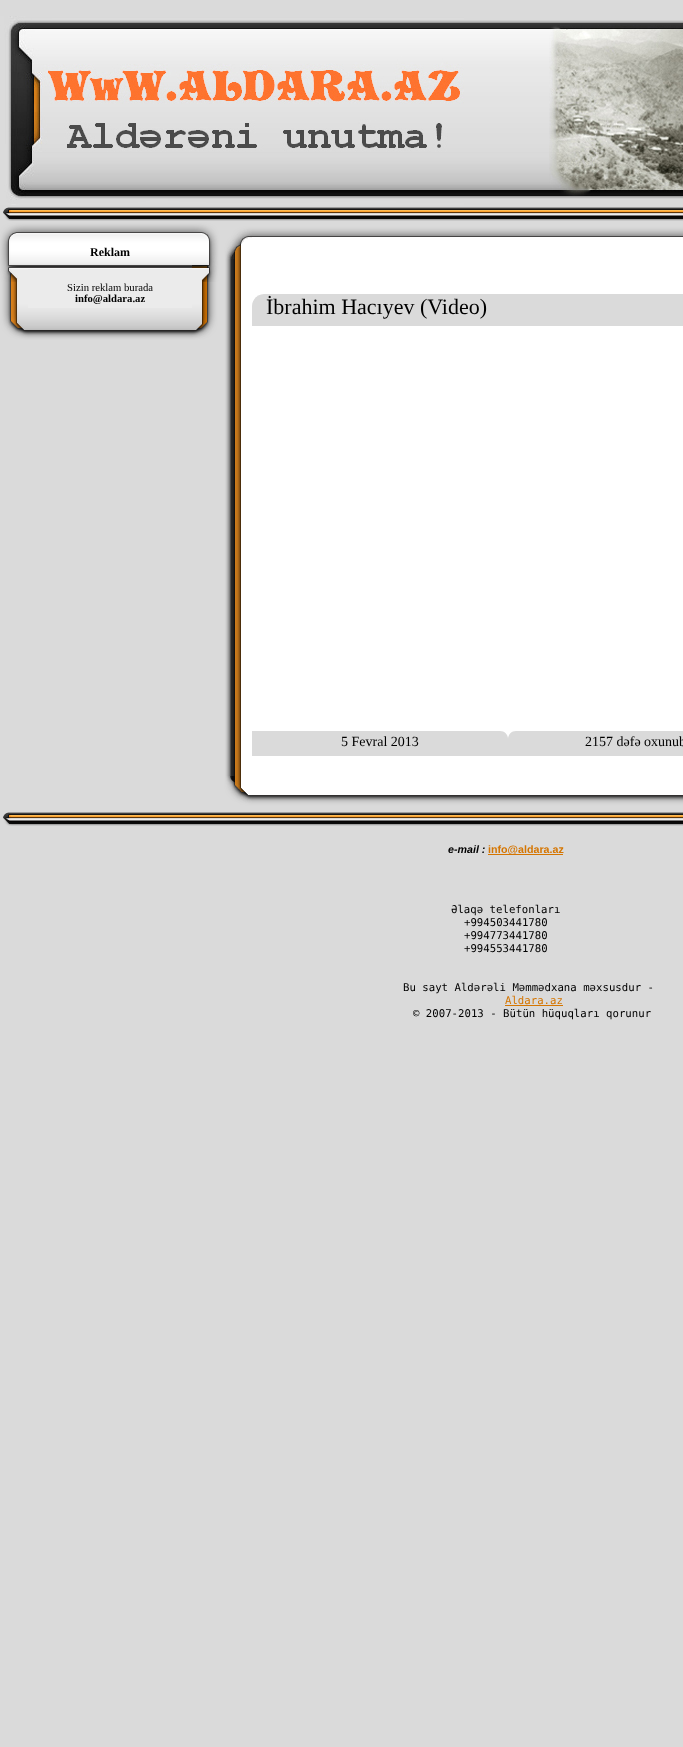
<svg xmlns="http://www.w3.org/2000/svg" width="683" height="1747">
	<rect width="100%" height="100%" fill="#DADADA" />
	<image x="464" y="20" width="9" height="179" href="assets/img1.png" />
	<image x="0" y="16" width="464" height="189" href="assets/img2.png" />
	<image x="473" y="20" width="70" height="179" href="assets/img3.png" />
	<image x="543" y="20" width="140" height="179" href="assets/img4.png" />
	<image x="549" y="25" width="134" height="171" href="assets/img5.png" />
	<image x="3" y="207" width="9" height="14" href="assets/img6.png" />
	<image x="12" y="207" width="671" height="14" href="assets/img7.png" />
	<rect x="17" y="269" width="185" height="39" fill="#EBEBEB" />
	<image x="0" y="222" width="28" height="60" href="assets/img8.png" />
	<image x="28" y="222" width="164" height="47" href="assets/img9.png" />
	<text x="90" y="256" font-family="Liberation Serif" font-size="12" font-weight="700" fill="#000000">Reklam</text>
	<image x="192" y="222" width="28" height="60" href="assets/img10.png" />
	<image x="0" y="282" width="17" height="22" href="assets/img11.png" />
	<text x="67" y="291" font-family="Liberation Serif" font-size="10.7" fill="#000000">Sizin reklam burada</text>
	<text x="75" y="302" font-family="Liberation Serif" font-size="10.7" font-weight="700" fill="#000000">info@aldara.az</text>
	<image x="202" y="282" width="18" height="22" href="assets/img12.png" />
	<image x="0" y="304" width="28" height="36" href="assets/img13.png" />
	<image x="28" y="308" width="164" height="32" href="assets/img14.png" />
	<image x="192" y="304" width="28" height="36" href="assets/img15.png" />
	<rect x="241" y="237" width="442" height="558" fill="#FFFFFF" />
	<image x="220" y="222" width="32" height="37" href="assets/img16.png" />
	<image x="252" y="222" width="431" height="15" href="assets/img17.png" />
	<image x="220" y="259" width="21" height="517" href="assets/img18.png" />
	<path d="M264 294H683C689.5 294 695 299.5 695 306V326H252V306C252 299.5 257.5 294 264 294Z" fill="#DADADA" />
	<text x="266" y="314" font-family="Liberation Serif" font-size="22" fill="#000000">İbrahim Hacıyev (Video)</text>
	<path d="M252 731H500C504.5 731 508 734.5 508 739V756H252Z" fill="#DADADA" />
	<text x="341" y="746" font-family="Liberation Serif" font-size="14" fill="#000000">5 Fevral 2013</text>
	<path d="M516 731H683C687.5 731 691 734.5 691 739V756H508V739C508 734.5 511.5 731 516 731Z" fill="#DADADA" />
	<text x="585" y="746" font-family="Liberation Serif" font-size="14" fill="#000000">2157 dəfə oxunub</text>
	<image x="220" y="776" width="32" height="34" href="assets/img19.png" />
	<image x="252" y="795" width="431" height="15" href="assets/img20.png" />
	<image x="3" y="812" width="9" height="14" href="assets/img6.png" />
	<image x="12" y="812" width="671" height="14" href="assets/img7.png" />
	<text x="448" y="853" font-family="Liberation Sans" font-size="10.7" font-weight="700" font-style="italic" fill="#000000">e-mail :</text>
	<rect x="488" y="854" width="61" height="1" fill="#D57500" />
	<text x="488" y="853" font-family="Liberation Sans" font-size="10.7" font-weight="700" fill="#D57500">info@aldara.az</text>
	<rect x="549" y="854" width="14" height="1" fill="#D57500" />
	<g font-family="DejaVu Sans Mono" font-size="10.7" fill="#000000">
		<text x="451" y="913">Əlaqə telefonları</text>
		<text x="464" y="926">+994503441780</text>
		<text x="464" y="939">+994773441780</text>
		<text x="464" y="952">+994553441780</text>
		<text x="403" y="991">Bu sayt Aldərəli Məmmədxana məxsusdur -</text>
	</g>
	<text x="505" y="1004" font-family="DejaVu Sans Mono" font-size="10.7" fill="#D57500">Aldara.az</text>
	<rect x="505" y="1005" width="58" height="1" fill="#D57500" />
	<text x="413" y="1017" font-family="DejaVu Sans Mono" font-size="10.7" fill="#000000">© 2007-2013 - Bütün hüquqları qorunur</text>
</svg>
